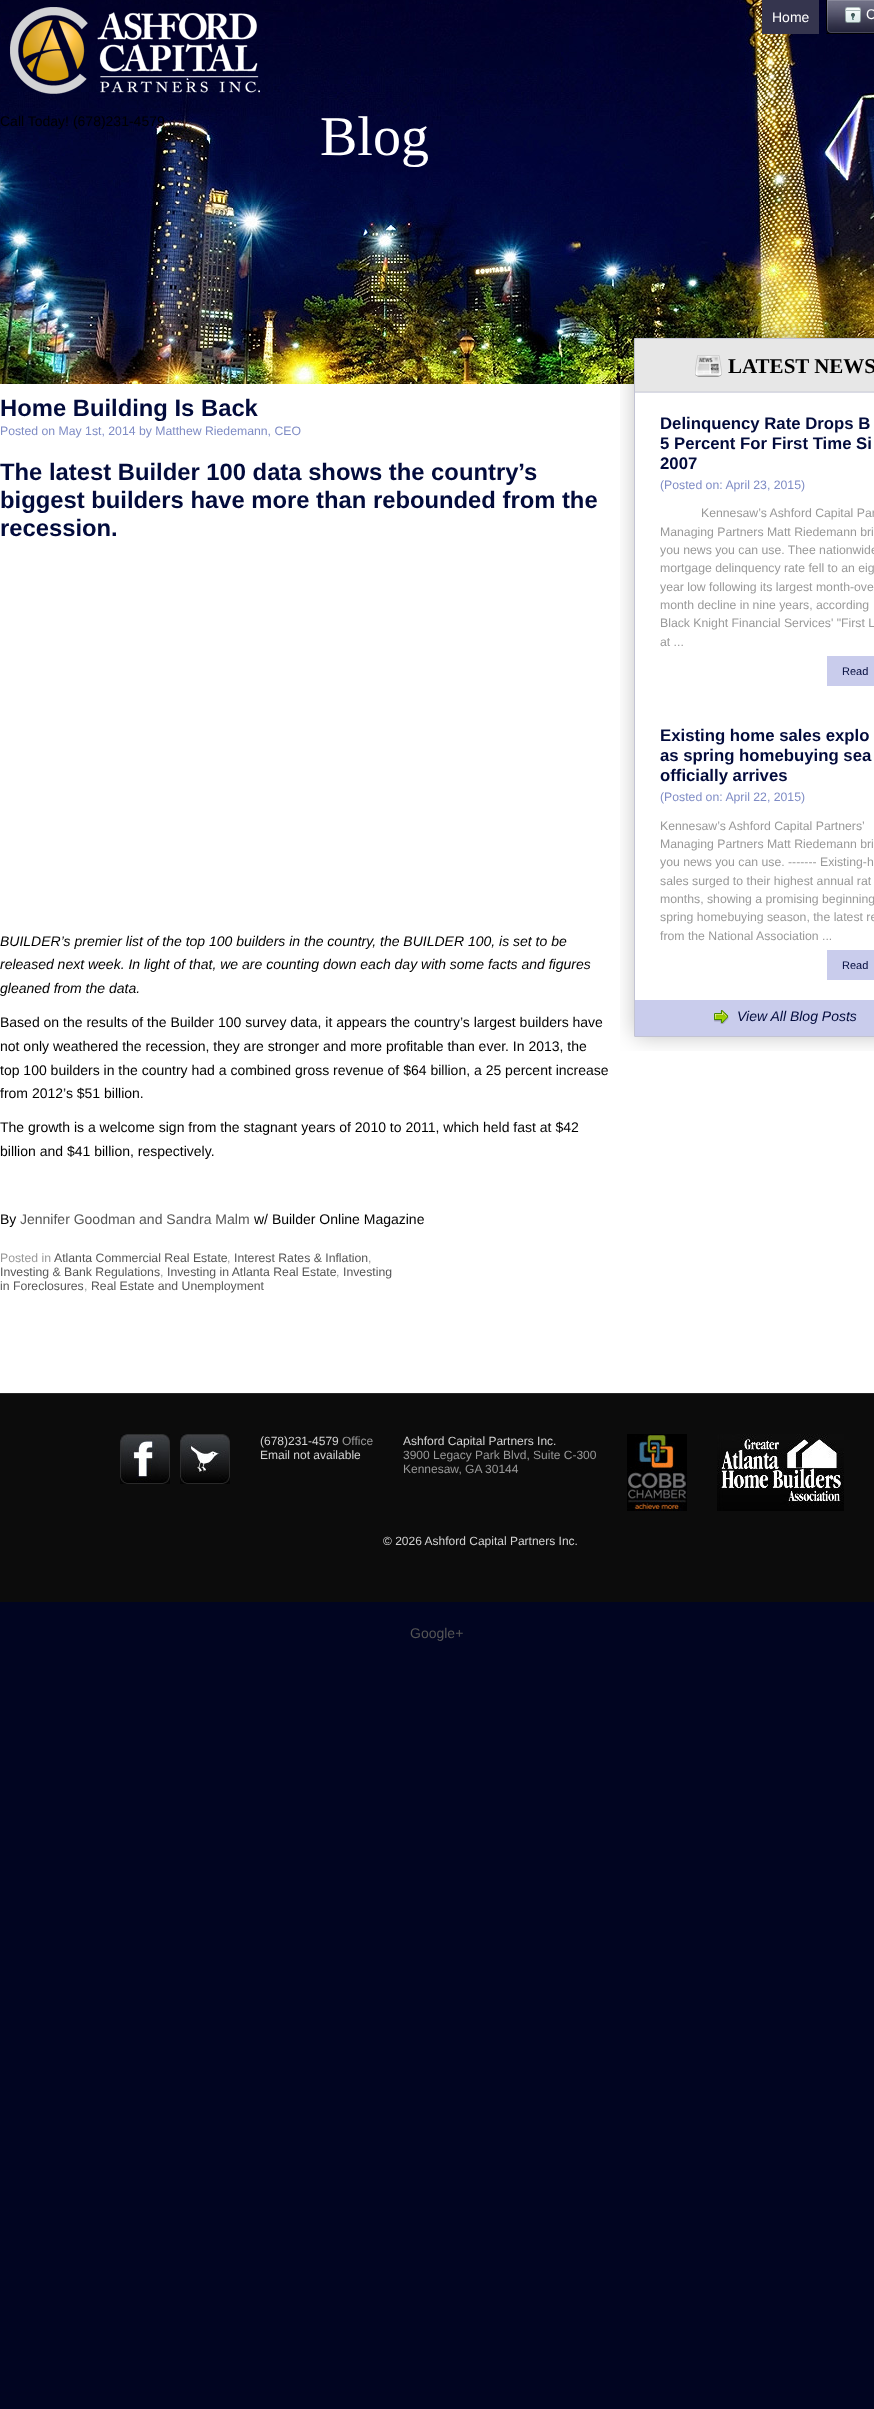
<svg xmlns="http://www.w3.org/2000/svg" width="874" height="2409">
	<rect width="100%" height="100%" fill="#010521" />
	<image x="0" y="0" width="874" height="384" href="assets/img1.png" />
	<image x="10" y="7" width="250" height="87" href="assets/img2.png" />
	<rect x="762" y="0" width="57" height="34" fill="#35354E" />
	<text x="772" y="22" font-family="Liberation Sans" font-size="14" fill="#FFFFFF">Home</text>
	<image x="826" y="0" width="48" height="34" href="assets/img3.png" />
	<text x="866" y="19" font-family="Liberation Sans" font-size="14" fill="#FFFFFF">C</text>
	<text x="0" y="126" font-family="Liberation Sans" font-size="14" fill="#000000">Call Today! (678)231-4579</text>
	<text x="320" y="155" font-family="Liberation Serif" font-size="56" fill="#FFFFFF">Blog</text>
	<rect x="0" y="384" width="874" height="1009" fill="#FFFFFF" />
	<text x="0" y="416" font-family="Liberation Sans" font-size="23.8" font-weight="700" fill="#020B3C">Home Building Is Back</text>
	<text x="0" y="435" font-family="Liberation Sans" font-size="12.25" fill="#7F8CC5">Posted on May 1st, 2014 by Matthew Riedemann, CEO</text>
	<g font-family="Liberation Sans" font-size="23.8" font-weight="700" fill="#020B3C">
		<text x="0" y="480">The latest Builder 100 data shows the country’s</text>
		<text x="0" y="508">biggest builders have more than rebounded from the</text>
		<text x="0" y="536">recession.</text>
	</g>
	<g font-family="Liberation Sans" font-size="14" font-style="italic" fill="#000000">
		<text x="0" y="946">BUILDER’s premier list of the top 100 builders in the country, the BUILDER 100, is set to be</text>
		<text x="0" y="969">released next week. In light of that, we are counting down each day with some facts and figures</text>
		<text x="0" y="993">gleaned from the data.</text>
	</g>
	<g font-family="Liberation Sans" font-size="14" fill="#000000">
		<text x="0" y="1027">Based on the results of the Builder 100 survey data, it appears the country’s largest builders have</text>
		<text x="0" y="1051">not only weathered the recession, they are stronger and more profitable than ever. In 2013, the</text>
		<text x="0" y="1075">top 100 builders in the country had a combined gross revenue of $64 billion, a 25 percent increase</text>
		<text x="0" y="1098">from 2012’s $51 billion.</text>
		<text x="0" y="1132">The growth is a welcome sign from the stagnant years of 2010 to 2011, which held fast at $42</text>
		<text x="0" y="1156">billion and $41 billion, respectively.</text>
		<text x="0" y="1224">By</text>
	</g>
	<text x="20" y="1224" font-family="Liberation Sans" font-size="14" fill="#555555">Jennifer Goodman and Sandra Malm</text>
	<text x="254" y="1224" font-family="Liberation Sans" font-size="14" fill="#000000">w/ Builder Online Magazine</text>
	<text x="0" y="1262" font-family="Liberation Sans" font-size="12.25" fill="#999999">Posted in</text>
	<text x="54" y="1262" font-family="Liberation Sans" font-size="12.25" fill="#555555">Atlanta Commercial Real Estate</text>
	<text x="227" y="1262" font-family="Liberation Sans" font-size="12.25" fill="#999999">,</text>
	<text x="234" y="1262" font-family="Liberation Sans" font-size="12.25" fill="#555555">Interest Rates &amp; Inflation</text>
	<text x="368" y="1262" font-family="Liberation Sans" font-size="12.25" fill="#999999">,</text>
	<text x="0" y="1276" font-family="Liberation Sans" font-size="12.25" fill="#555555">Investing &amp; Bank Regulations</text>
	<text x="160" y="1276" font-family="Liberation Sans" font-size="12.25" fill="#999999">,</text>
	<text x="167" y="1276" font-family="Liberation Sans" font-size="12.25" fill="#555555">Investing in Atlanta Real Estate</text>
	<text x="336" y="1276" font-family="Liberation Sans" font-size="12.25" fill="#999999">,</text>
	<g font-family="Liberation Sans" font-size="12.25" fill="#555555">
		<text x="343" y="1276">Investing</text>
		<text x="0" y="1290">in Foreclosures</text>
	</g>
	<text x="84" y="1290" font-family="Liberation Sans" font-size="12.25" fill="#999999">,</text>
	<text x="91" y="1290" font-family="Liberation Sans" font-size="12.25" fill="#555555">Real Estate and Unemployment</text>
	<image x="620" y="324" width="254" height="70" href="assets/img4.png" />
	<image x="695" y="355" width="27" height="22" href="assets/img5.png" />
	<text x="728" y="373" font-family="Liberation Serif" font-size="21" font-weight="700" fill="#000000">LATEST NEWS</text>
	<image x="620" y="394" width="15" height="312" href="assets/img6.png" />
	<g font-family="Liberation Sans" font-size="16.75" font-weight="700" fill="#020B3C">
		<text x="660" y="429">Delinquency Rate Drops B</text>
		<text x="660" y="449">5 Percent For First Time Si</text>
		<text x="660" y="469">2007</text>
	</g>
	<text x="660" y="489" font-family="Liberation Sans" font-size="12.25" fill="#7F8CC5">(Posted on: April 23, 2015)</text>
	<g font-family="Liberation Sans" font-size="12.25" fill="#999999">
		<text x="701" y="517">Kennesaw’s Ashford Capital Par</text>
		<text x="660" y="536">Managing Partners Matt Riedemann bri</text>
		<text x="660" y="554">you news you can use. Thee nationwide</text>
		<text x="660" y="572">mortgage delinquency rate fell to an eig</text>
		<text x="660" y="591">year low following its largest month-ove</text>
		<text x="660" y="609">month decline in nine years, according</text>
		<text x="660" y="627">Black Knight Financial Services' "First L</text>
		<text x="660" y="646">at ...</text>
	</g>
	<rect x="827" y="656" width="47" height="30" fill="#C9CCEC" />
	<text x="842" y="675" font-family="Liberation Sans" font-size="11" fill="#020B3C">Read</text>
	<image x="620" y="706" width="15" height="294" href="assets/img7.png" />
	<g font-family="Liberation Sans" font-size="16.75" font-weight="700" fill="#020B3C">
		<text x="660" y="741">Existing home sales explo</text>
		<text x="660" y="761">as spring homebuying sea</text>
		<text x="660" y="781">officially arrives</text>
	</g>
	<text x="660" y="801" font-family="Liberation Sans" font-size="12.25" fill="#7F8CC5">(Posted on: April 22, 2015)</text>
	<g font-family="Liberation Sans" font-size="12.25" fill="#999999">
		<text x="660" y="830">Kennesaw’s Ashford Capital Partners’</text>
		<text x="660" y="848">Managing Partners Matt Riedemann bri</text>
		<text x="660" y="866">you news you can use. ------- Existing-h</text>
		<text x="660" y="885">sales surged to their highest annual rat</text>
		<text x="660" y="903">months, showing a promising beginning</text>
		<text x="660" y="921">spring homebuying season, the latest re</text>
		<text x="660" y="940">from the National Association ...</text>
	</g>
	<rect x="827" y="950" width="47" height="30" fill="#C9CCEC" />
	<text x="842" y="969" font-family="Liberation Sans" font-size="11" fill="#020B3C">Read</text>
	<image x="620" y="1000" width="254" height="51" href="assets/img8.png" />
	<image x="714" y="1010" width="15" height="14" href="assets/img9.png" />
	<text x="737" y="1021" font-family="Liberation Sans" font-size="14" font-style="italic" fill="#020B3C">View All Blog Posts</text>
	<rect x="0" y="1394" width="874" height="208" fill="#0C0C0C" />
	<rect x="0" y="1393" width="874" height="1" fill="#262626" />
	<image x="120" y="1434" width="50" height="50" href="assets/img10.png" />
	<image x="180" y="1434" width="50" height="50" href="assets/img11.png" />
	<text x="260" y="1445" font-family="Liberation Sans" font-size="12" fill="#D3D3D3">(678)231-4579</text>
	<text x="342" y="1445" font-family="Liberation Sans" font-size="12" fill="#999999">Office</text>
	<g font-family="Liberation Sans" font-size="12" fill="#D3D3D3">
		<text x="260" y="1459">Email not available</text>
		<text x="403" y="1445">Ashford Capital Partners Inc.</text>
	</g>
	<g font-family="Liberation Sans" font-size="12" fill="#999999">
		<text x="403" y="1459">3900 Legacy Park Blvd, Suite C-300</text>
		<text x="403" y="1473">Kennesaw, GA 30144</text>
	</g>
	<image x="627" y="1434" width="60" height="77" href="assets/img12.png" />
	<image x="717" y="1434" width="127" height="77" href="assets/img13.png" />
	<text x="383" y="1545" font-family="Liberation Sans" font-size="12" fill="#D3D3D3">© 2026 Ashford Capital Partners Inc.</text>
	<text x="410" y="1638" font-family="Liberation Sans" font-size="14" fill="#555555">Google+</text>
</svg>
